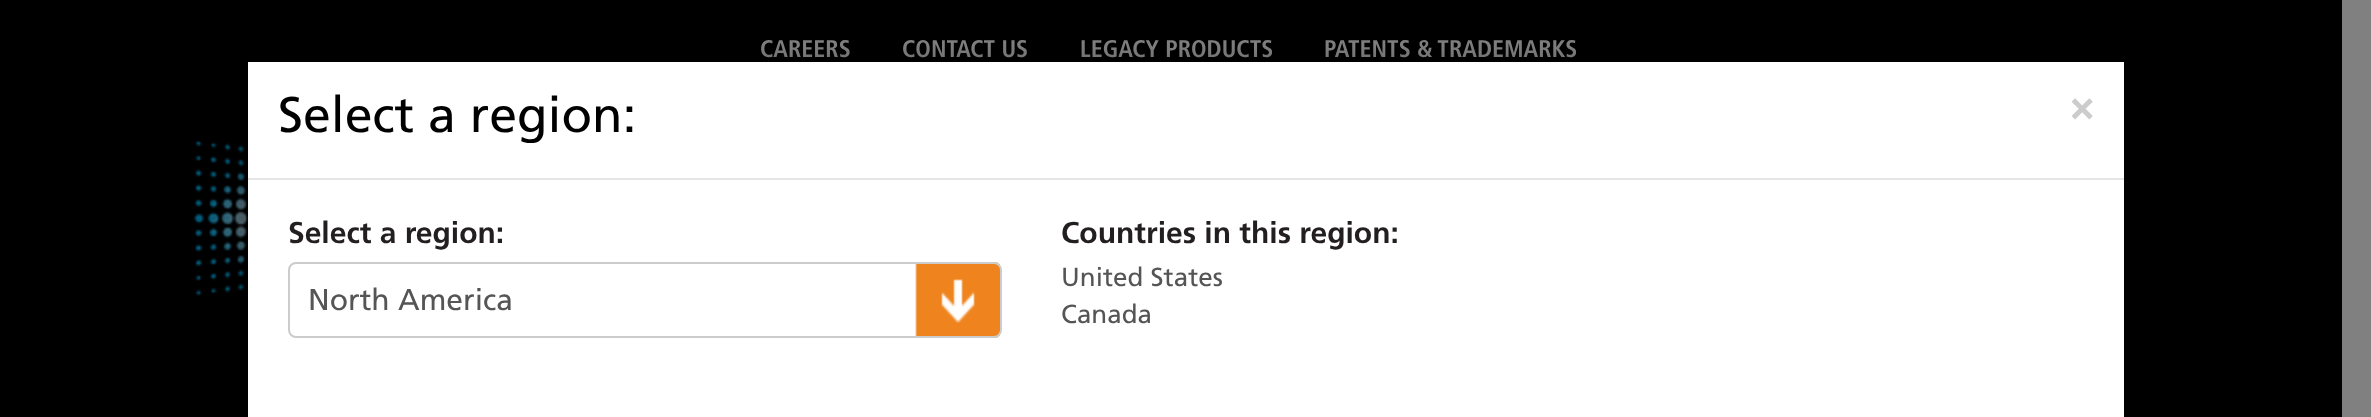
<svg xmlns="http://www.w3.org/2000/svg" width="2371" height="417">
	<rect width="100%" height="100%" fill="#808080" />
	<rect x="0" y="0" width="2342" height="417" fill="#000000" />
	<g font-family="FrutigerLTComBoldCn" font-size="24" fill="#808080">
		<text x="760" y="57">CAREERS</text>
		<text x="902" y="57">CONTACT US</text>
		<text x="1080" y="57">LEGACY PRODUCTS</text>
		<text x="1324" y="57">PATENTS &amp; TRADEMARKS</text>
	</g>
	<image x="193" y="139" width="55" height="158" href="assets/img1.png" />
	<rect x="246" y="70" width="1880" height="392" fill="#000000" fill-opacity="0.5" filter="blur(15px)" />
	<rect x="248" y="62" width="1876" height="355" fill="#FFFFFF" />
	<rect x="247" y="61" width="1878" height="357" fill="none" stroke="#000000" stroke-opacity="0.2" stroke-width="2" />
	<rect x="248" y="178" width="1876" height="2" fill="#E5E5E5" />
	<text x="278" y="132" font-family="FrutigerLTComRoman" font-size="50" fill="#000000">Select a region:</text>
	<text x="2069" y="120" font-family="FrutigerLTComRoman" font-size="42" font-weight="700" fill="#CCCCCC">×</text>
	<text x="288" y="243" font-family="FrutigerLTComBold" font-size="30" fill="#231F20">Select a region:</text>
	<image x="915" y="262" width="85" height="76" href="assets/img2.png" />
	<rect x="289" y="263" width="712" height="74" rx="7" fill="none" stroke="#CCCCCC" stroke-width="2" />
	<text x="308" y="310" font-family="FrutigerLTComRoman" font-size="30" fill="#555555">North America</text>
	<text x="1061" y="243" font-family="FrutigerLTComBold" font-size="30" fill="#231F20">Countries in this region:</text>
	<g font-family="FrutigerLTComRoman" font-size="26" fill="#555555">
		<text x="1061" y="286">United States</text>
		<text x="1061" y="323">Canada</text>
	</g>
</svg>
